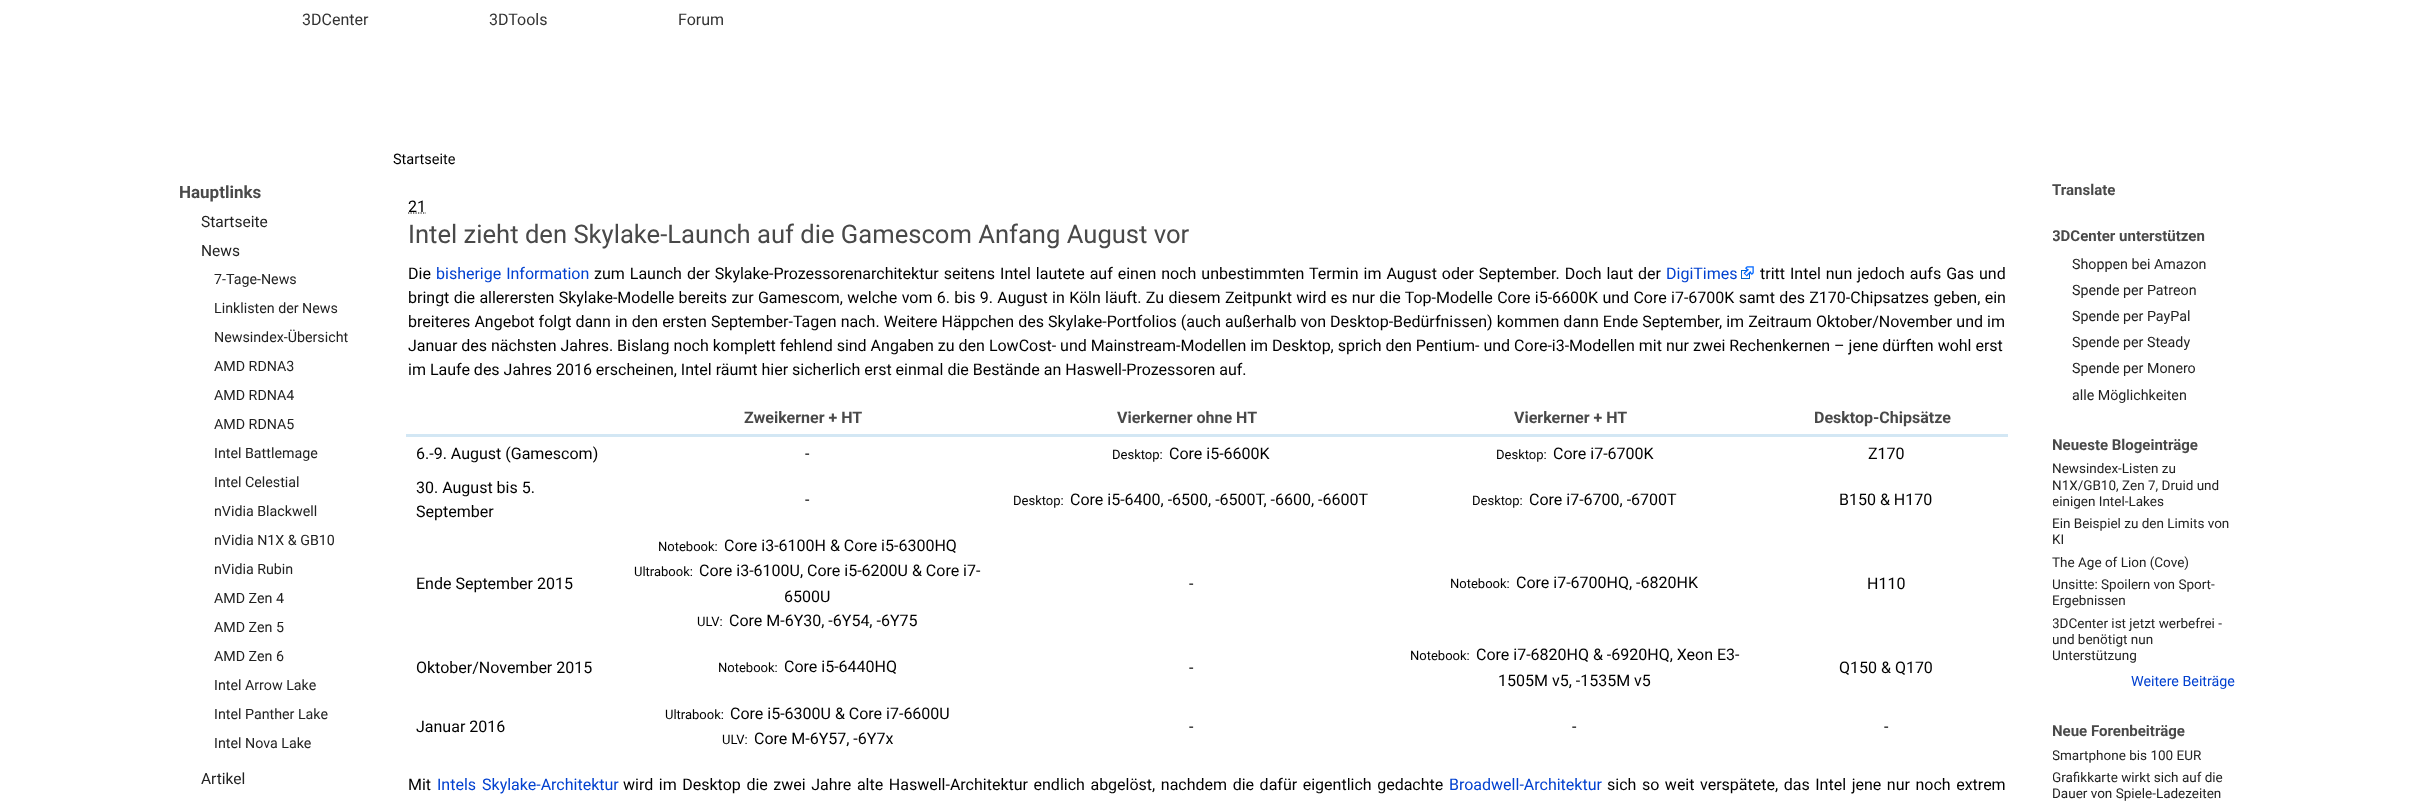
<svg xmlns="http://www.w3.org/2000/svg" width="2413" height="803">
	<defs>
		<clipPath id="clip1"><rect x="2053" y="181" width="182" height="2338" /></clipPath>
	</defs>
	<rect width="100%" height="100%" fill="#FFFFFF" />
	<g font-family="Roboto" font-size="16" fill="#333333">
		<text x="302" y="25">3DCenter</text>
		<text x="489" y="25">3DTools</text>
		<text x="678" y="25">Forum</text>
	</g>
	<text x="179" y="198" font-family="Roboto" font-size="17" font-weight="700" fill="#494949">Hauptlinks</text>
	<g font-family="Roboto" font-size="15.5" fill="#222222">
		<text x="201" y="227">Startseite</text>
		<text x="201" y="256">News</text>
	</g>
	<g font-family="Roboto" font-size="14.25" fill="#222222">
		<text x="214" y="284">7-Tage-News</text>
		<text x="214" y="313">Linklisten der News</text>
		<text x="214" y="342">Newsindex-Übersicht</text>
		<text x="214" y="371">AMD RDNA3</text>
		<text x="214" y="400">AMD RDNA4</text>
		<text x="214" y="429">AMD RDNA5</text>
		<text x="214" y="458">Intel Battlemage</text>
		<text x="214" y="487">Intel Celestial</text>
		<text x="214" y="516">nVidia Blackwell</text>
		<text x="214" y="545">nVidia N1X &amp; GB10</text>
		<text x="214" y="574">nVidia Rubin</text>
		<text x="214" y="603">AMD Zen 4</text>
		<text x="214" y="632">AMD Zen 5</text>
		<text x="214" y="661">AMD Zen 6</text>
		<text x="214" y="690">Intel Arrow Lake</text>
		<text x="214" y="719">Intel Panther Lake</text>
		<text x="214" y="748">Intel Nova Lake</text>
	</g>
	<text x="201" y="784" font-family="Roboto" font-size="15.5" fill="#222222">Artikel</text>
	<text x="393" y="164" font-family="Roboto" font-size="14.5" fill="#000000">Startseite</text>
	<text x="408" y="212" font-family="Roboto" font-size="16" fill="#000000">21</text>
	<path d="M408 213H426" fill="none" stroke="#000000" stroke-width="1.2" stroke-dasharray="1.25 1.25" />
	<text x="408" y="243" font-family="Roboto" font-size="25.6" fill="#494949">Intel zieht den Skylake-Launch auf die Gamescom Anfang August vor</text>
	<text x="408" y="279" font-family="Roboto" font-size="16" fill="#000000">Die</text>
	<text x="436" y="279" word-spacing="1" font-family="Roboto" font-size="16" fill="#0241D0">bisherige Information</text>
	<text x="594" y="279" word-spacing="1" font-family="Roboto" font-size="16" fill="#000000">zum Launch der Skylake-Prozessorenarchitektur seitens Intel lautete auf einen noch unbestimmten Termin im August oder September. Doch laut der</text>
	<text x="1666" y="279" font-family="Roboto" font-size="16" fill="#0241D0">DigiTimes</text>
	<image x="1741" y="266" width="13" height="13" href="assets/img1.png" />
	<g font-family="Roboto" font-size="16" fill="#000000">
		<text x="1760" y="279" word-spacing="1">tritt Intel nun jedoch aufs Gas und</text>
		<text x="408" y="303" word-spacing="0.35">bringt die allerersten Skylake-Modelle bereits zur Gamescom, welche vom 6. bis 9. August in Köln läuft. Zu diesem Zeitpunkt wird es nur die Top-Modelle Core i5-6600K und Core i7-6700K samt des Z170-Chipsatzes geben, ein</text>
		<text x="408" y="327" word-spacing="0.1">breiteres Angebot folgt dann in den ersten September-Tagen nach. Weitere Häppchen des Skylake-Portfolios (auch außerhalb von Desktop-Bedürfnissen) kommen dann Ende September, im Zeitraum Oktober/November und im</text>
		<text x="408" y="351">Januar des nächsten Jahres. Bislang noch komplett fehlend sind Angaben zu den LowCost- und Mainstream-Modellen im Desktop, sprich den Pentium- und Core-i3-Modellen mit nur zwei Rechenkernen – jene dürften wohl erst</text>
		<text x="408" y="375">im Laufe des Jahres 2016 erscheinen, Intel räumt hier sicherlich erst einmal die Bestände an Haswell-Prozessoren auf.</text>
	</g>
	<g font-family="Roboto" font-size="16" font-weight="700" fill="#494949">
		<text x="744" y="423">Zweikerner + HT</text>
		<text x="1117" y="423">Vierkerner ohne HT</text>
		<text x="1514" y="423">Vierkerner + HT</text>
	</g>
	<rect x="406" y="434" width="1602" height="3" fill="#D3E7F4" />
	<text x="1814" y="423" font-family="Roboto" font-size="16" font-weight="700" fill="#494949">Desktop-Chipsätze</text>
	<g font-family="Roboto" font-size="16" fill="#000000">
		<text x="416" y="459">6.-9. August (Gamescom)</text>
		<text x="805" y="459">-</text>
	</g>
	<text x="1112" y="459" font-family="Roboto" font-size="13" fill="#000000">Desktop:</text>
	<text x="1169" y="459" font-family="Roboto" font-size="16" fill="#000000">Core i5-6600K</text>
	<text x="1496" y="459" font-family="Roboto" font-size="13" fill="#000000">Desktop:</text>
	<g font-family="Roboto" font-size="16" fill="#000000">
		<text x="1553" y="459">Core i7-6700K</text>
		<text x="1868" y="459">Z170</text>
		<text x="416" y="493">30. August bis 5.</text>
		<text x="416" y="517">September</text>
		<text x="805" y="505">-</text>
	</g>
	<text x="1013" y="505" font-family="Roboto" font-size="13" fill="#000000">Desktop:</text>
	<text x="1070" y="505" font-family="Roboto" font-size="16" fill="#000000">Core i5-6400, -6500, -6500T, -6600, -6600T</text>
	<text x="1472" y="505" font-family="Roboto" font-size="13" fill="#000000">Desktop:</text>
	<g font-family="Roboto" font-size="16" fill="#000000">
		<text x="1529" y="505">Core i7-6700, -6700T</text>
		<text x="1839" y="505">B150 &amp; H170</text>
		<text x="416" y="589">Ende September 2015</text>
	</g>
	<text x="658" y="551" font-family="Roboto" font-size="13" fill="#000000">Notebook:</text>
	<text x="724" y="551" font-family="Roboto" font-size="16" fill="#000000">Core i3-6100H &amp; Core i5-6300HQ</text>
	<text x="634" y="576" font-family="Roboto" font-size="13" fill="#000000">Ultrabook:</text>
	<g font-family="Roboto" font-size="16" fill="#000000">
		<text x="699" y="576">Core i3-6100U, Core i5-6200U &amp; Core i7-</text>
		<text x="784" y="602">6500U</text>
	</g>
	<text x="697" y="626" font-family="Roboto" font-size="13" fill="#000000">ULV:</text>
	<g font-family="Roboto" font-size="16" fill="#000000">
		<text x="729" y="626">Core M-6Y30, -6Y54, -6Y75</text>
		<text x="1189" y="589">-</text>
	</g>
	<text x="1450" y="588" font-family="Roboto" font-size="13" fill="#000000">Notebook:</text>
	<g font-family="Roboto" font-size="16" fill="#000000">
		<text x="1516" y="588">Core i7-6700HQ, -6820HK</text>
		<text x="1867" y="589">H110</text>
		<text x="416" y="673">Oktober/November 2015</text>
	</g>
	<text x="718" y="672" font-family="Roboto" font-size="13" fill="#000000">Notebook:</text>
	<g font-family="Roboto" font-size="16" fill="#000000">
		<text x="784" y="672">Core i5-6440HQ</text>
		<text x="1189" y="673">-</text>
	</g>
	<text x="1410" y="660" font-family="Roboto" font-size="13" fill="#000000">Notebook:</text>
	<g font-family="Roboto" font-size="16" fill="#000000">
		<text x="1476" y="660">Core i7-6820HQ &amp; -6920HQ, Xeon E3-</text>
		<text x="1498" y="686">1505M v5, -1535M v5</text>
		<text x="1839" y="673">Q150 &amp; Q170</text>
		<text x="416" y="732">Januar 2016</text>
	</g>
	<text x="665" y="719" font-family="Roboto" font-size="13" fill="#000000">Ultrabook:</text>
	<text x="730" y="719" font-family="Roboto" font-size="16" fill="#000000">Core i5-6300U &amp; Core i7-6600U</text>
	<text x="722" y="744" font-family="Roboto" font-size="13" fill="#000000">ULV:</text>
	<g font-family="Roboto" font-size="16" fill="#000000">
		<text x="754" y="744">Core M-6Y57, -6Y7x</text>
		<text x="1189" y="732">-</text>
		<text x="1572" y="732">-</text>
		<text x="1884" y="732">-</text>
		<text x="408" y="790">Mit</text>
	</g>
	<text x="437" y="790" word-spacing="2" font-family="Roboto" font-size="16" fill="#0241D0">Intels Skylake-Architektur</text>
	<text x="623" y="790" word-spacing="1.6" font-family="Roboto" font-size="16" fill="#000000">wird im Desktop die zwei Jahre alte Haswell-Architektur endlich abgelöst, nachdem die dafür eigentlich gedachte</text>
	<text x="1449" y="790" font-family="Roboto" font-size="16" fill="#0241D0">Broadwell-Architektur</text>
	<text x="1607" y="790" word-spacing="1.6" font-family="Roboto" font-size="16" fill="#000000">sich so weit verspätete, das Intel jene nur noch extrem</text>
	<text x="2052" y="195" font-family="Roboto" font-size="15" font-weight="700" fill="#494949">Translate</text>
	<g clip-path="url(#clip1)">
		<text x="2052" y="241" font-family="Roboto" font-size="15" font-weight="700" fill="#494949">3DCenter unterstützen</text>
	</g>
	<g font-family="Roboto" font-size="14.25" fill="#222222">
		<text x="2072" y="269">Shoppen bei Amazon</text>
		<text x="2072" y="295">Spende per Patreon</text>
		<text x="2072" y="321">Spende per PayPal</text>
		<text x="2072" y="347">Spende per Steady</text>
		<text x="2072" y="373">Spende per Monero</text>
		<text x="2072" y="400">alle Möglichkeiten</text>
	</g>
	<g clip-path="url(#clip1)">
		<text x="2052" y="450" font-family="Roboto" font-size="15" font-weight="700" fill="#494949">Neueste Blogeinträge</text>
	</g>
	<g font-family="Roboto" font-size="13.5" fill="#222222">
		<text x="2052" y="473">Newsindex-Listen zu</text>
		<text x="2052" y="490">N1X/GB10, Zen 7, Druid und</text>
	</g>
	<g clip-path="url(#clip1)">
		<text x="2052" y="506" font-family="Roboto" font-size="13.5" fill="#222222">einigen Intel-Lakes</text>
	</g>
	<g font-family="Roboto" font-size="13.5" fill="#222222">
		<text x="2052" y="528">Ein Beispiel zu den Limits von</text>
		<text x="2052" y="544">KI</text>
		<text x="2052" y="567">The Age of Lion (Cove)</text>
	</g>
	<g clip-path="url(#clip1)">
		<text x="2052" y="589" font-family="Roboto" font-size="13.5" fill="#222222">Unsitte: Spoilern von Sport-</text>
	</g>
	<text x="2052" y="605" font-family="Roboto" font-size="13.5" fill="#222222">Ergebnissen</text>
	<g clip-path="url(#clip1)">
		<g font-family="Roboto" font-size="13.5" fill="#222222">
			<text x="2052" y="628">3DCenter ist jetzt werbefrei -</text>
			<text x="2052" y="644">und benötigt nun</text>
			<text x="2052" y="660">Unterstützung</text>
		</g>
	</g>
	<text x="2131" y="686" font-family="Roboto" font-size="14.25" fill="#0241D0">Weitere Beiträge</text>
	<g clip-path="url(#clip1)">
		<text x="2052" y="736" font-family="Roboto" font-size="15" font-weight="700" fill="#494949">Neue Forenbeiträge</text>
		<g font-family="Roboto" font-size="13.5" fill="#222222">
			<text x="2052" y="760">Smartphone bis 100 EUR</text>
			<text x="2052" y="782">Grafikkarte wirkt sich auf die</text>
		</g>
	</g>
	<text x="2052" y="798" font-family="Roboto" font-size="13.5" fill="#222222">Dauer von Spiele-Ladezeiten</text>
</svg>
